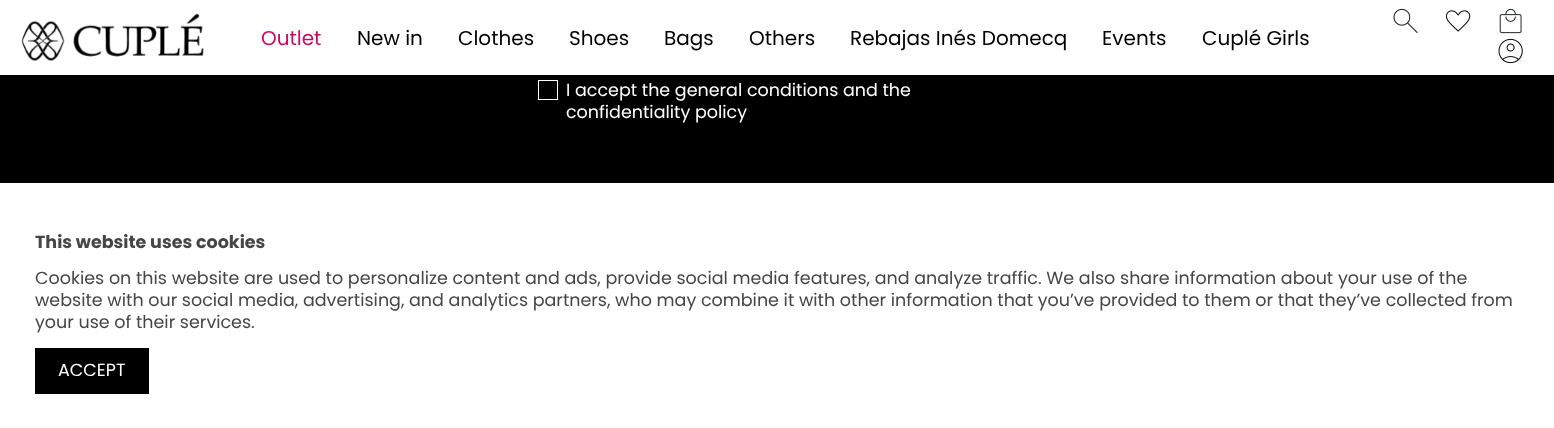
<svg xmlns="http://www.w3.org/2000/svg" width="1554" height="428">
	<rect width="100%" height="100%" fill="#FFFFFF" />
	<image x="21" y="13" width="183" height="48" href="assets/img1.png" />
	<text x="261" y="45" font-family="Poppins" font-size="20" fill="#CA0A65">Outlet</text>
	<g font-family="Poppins" font-size="20" fill="#000000">
		<text x="357" y="45">New in</text>
		<text x="458" y="45">Clothes</text>
		<text x="569" y="45">Shoes</text>
		<text x="664" y="45">Bags</text>
		<text x="749" y="45">Others</text>
		<text x="850" y="45">Rebajas Inés Domecq</text>
		<text x="1102" y="45">Events</text>
		<text x="1202" y="45">Cuplé Girls</text>
	</g>
	<image x="1393" y="8" width="25" height="25" href="assets/img2.png" />
	<image x="1446" y="10" width="25" height="22" href="assets/img3.png" />
	<image x="1499" y="8" width="23" height="26" href="assets/img4.png" />
	<image x="1498" y="38" width="25" height="26" href="assets/img5.png" />
	<rect x="0" y="75" width="1554" height="108" fill="#000000" />
	<rect x="538.5" y="80.5" width="19" height="19" fill="none" stroke="#FFFFFF" />
	<g font-family="Poppins" font-size="17.5" fill="#FFFFFF">
		<text x="566" y="96">I accept the general conditions and the</text>
		<text x="566" y="118">confidentiality policy</text>
	</g>
	<text x="35" y="248" font-family="Poppins" font-size="17.5" font-weight="700" fill="#464646">This website uses cookies</text>
	<g font-family="Poppins" font-size="17.5" fill="#464646">
		<text x="35" y="284">Cookies on this website are used to personalize content and ads, provide social media features, and analyze traffic. We also share information about your use of the</text>
		<text x="35" y="306">website with our social media, advertising, and analytics partners, who may combine it with other information that you’ve provided to them or that they’ve collected from</text>
		<text x="35" y="328">your use of their services.</text>
	</g>
	<rect x="35" y="348" width="114" height="46" fill="#000000" />
	<text x="58" y="376" font-family="Poppins" font-size="17.5" fill="#FFFFFF">ACCEPT</text>
</svg>
